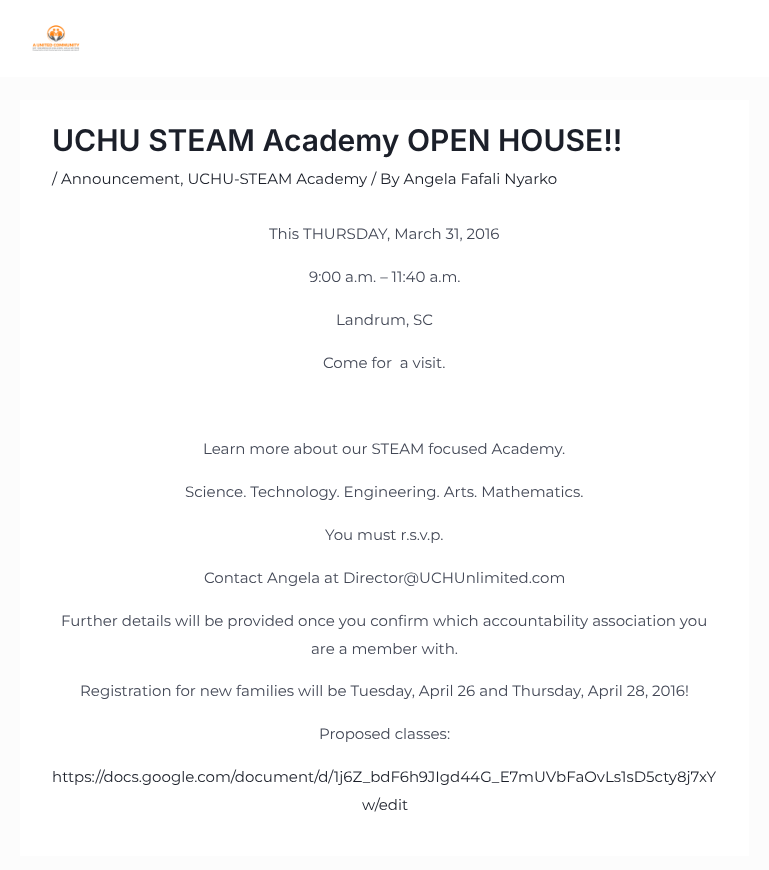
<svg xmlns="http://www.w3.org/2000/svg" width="769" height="870">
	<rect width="100%" height="100%" fill="#FCFCFC" />
	<rect x="0" y="0" width="769" height="77" fill="#FFFFFF" />
	<image x="32" y="25" width="48" height="26" href="assets/img1.png" />
	<rect x="20" y="100" width="729" height="756" fill="#FFFFFF" />
	<text x="52" y="151" font-family="Inter" font-size="30" font-weight="600" fill="#1B1F29">UCHU STEAM Academy OPEN HOUSE!!</text>
	<text x="52" y="184" font-family="Montserrat" font-size="15" fill="#1B1F29">/ Announcement, UCHU-STEAM Academy / By Angela Fafali Nyarko</text>
	<g font-family="Montserrat" font-size="15" fill="#434856">
		<text x="269" y="239">This THURSDAY, March 31, 2016</text>
		<text x="309" y="282">9:00 a.m. – 11:40 a.m.</text>
		<text x="336" y="325">Landrum, SC</text>
		<text x="323" y="368" xml:space="preserve">Come for  a visit.</text>
		<text x="203" y="454">Learn more about our STEAM focused Academy.</text>
		<text x="185" y="497">Science. Technology. Engineering. Arts. Mathematics.</text>
		<text x="325" y="540">You must r.s.v.p.</text>
		<text x="204" y="583">Contact Angela at Director@UCHUnlimited.com</text>
		<text x="61" y="626">Further details will be provided once you confirm which accountability association you</text>
		<text x="311" y="654">are a member with.</text>
		<text x="80" y="696">Registration for new families will be Tuesday, April 26 and Thursday, April 28, 2016!</text>
		<text x="319" y="739">Proposed classes:</text>
	</g>
	<g font-family="Montserrat" font-size="15" fill="#1B1F29">
		<text x="52" y="782">https://docs.google.com/document/d/1j6Z_bdF6h9JIgd44G_E7mUVbFaOvLs1sD5cty8j7xY</text>
		<text x="362" y="810">w/edit</text>
	</g>
</svg>
